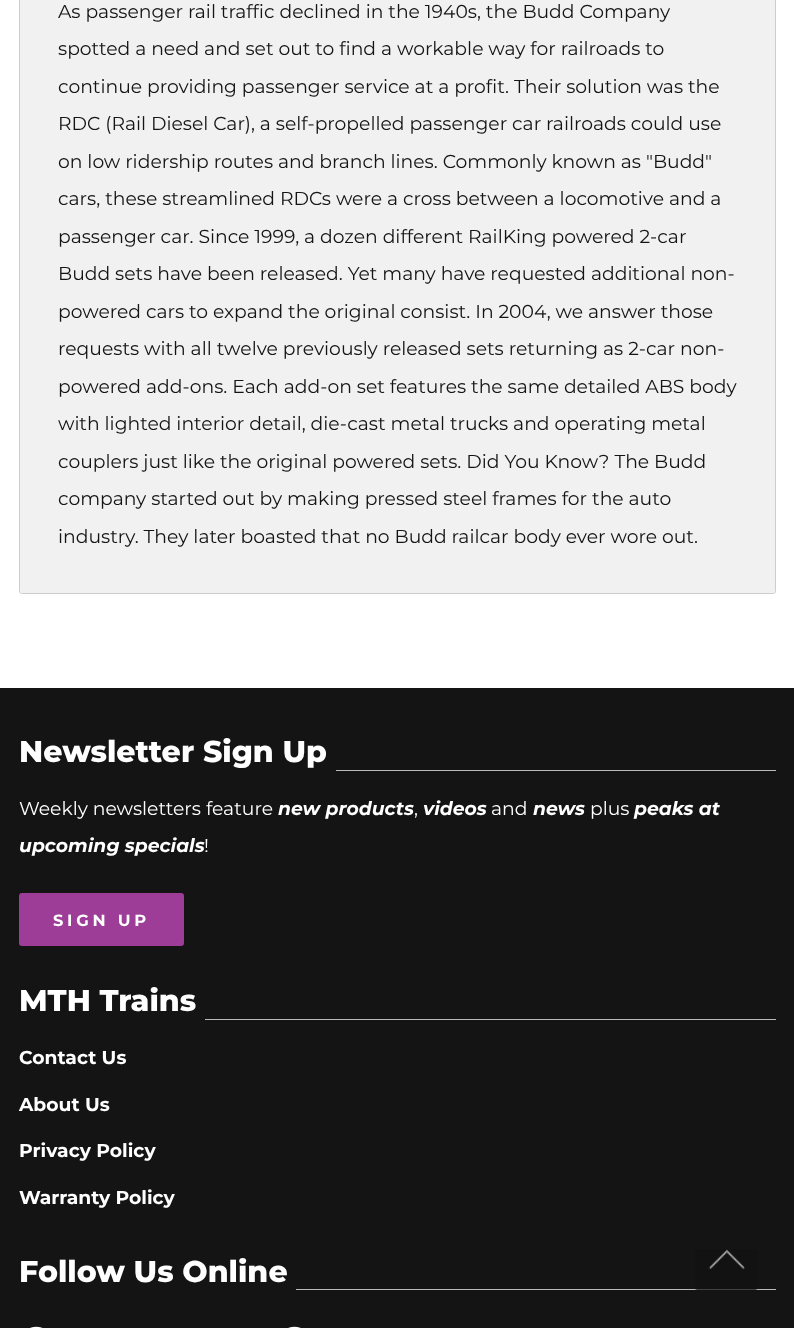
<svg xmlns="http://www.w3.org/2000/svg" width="794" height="1328">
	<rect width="100%" height="100%" fill="#FFFFFF" />
	<path d="M19.5-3.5H773.5C774.5-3.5 775.5-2.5 775.5-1.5V591.5C775.5 592.5 774.5 593.5 773.5 593.5H21.5C20.5 593.5 19.5 592.5 19.5 591.5Z" fill="#F1F1F1" stroke="#CDCDCD" />
	<g font-family="Montserrat" font-size="18.75" fill="#141414">
		<text x="58" y="18">As passenger rail traffic declined in the 1940s, the Budd Company</text>
		<text x="58" y="55">spotted a need and set out to find a workable way for railroads to</text>
		<text x="58" y="93">continue providing passenger service at a profit. Their solution was the</text>
		<text x="58" y="130">RDC (Rail Diesel Car), a self-propelled passenger car railroads could use</text>
		<text x="58" y="168">on low ridership routes and branch lines. Commonly known as "Budd"</text>
		<text x="58" y="205">cars, these streamlined RDCs were a cross between a locomotive and a</text>
		<text x="58" y="243">passenger car. Since 1999, a dozen different RailKing powered 2-car</text>
		<text x="58" y="280">Budd sets have been released. Yet many have requested additional non-</text>
		<text x="58" y="318">powered cars to expand the original consist. In 2004, we answer those</text>
		<text x="58" y="355">requests with all twelve previously released sets returning as 2-car non-</text>
		<text x="58" y="393">powered add-ons. Each add-on set features the same detailed ABS body</text>
		<text x="58" y="430">with lighted interior detail, die-cast metal trucks and operating metal</text>
		<text x="58" y="468">couplers just like the original powered sets. Did You Know? The Budd</text>
		<text x="58" y="505">company started out by making pressed steel frames for the auto</text>
		<text x="58" y="543">industry. They later boasted that no Budd railcar body ever wore out.</text>
	</g>
	<rect x="0" y="688" width="794" height="640" fill="#141414" />
	<text x="19" y="762" font-family="Montserrat" font-size="30" font-weight="800" fill="#FFFFFF">Newsletter Sign Up</text>
	<rect x="336" y="770" width="440" height="1" fill="#BABABA" />
	<text x="19" y="815" font-family="Montserrat" font-size="18.75" fill="#FFFFFF">Weekly newsletters feature</text>
	<text x="278" y="815" font-family="Montserrat" font-size="18.75" font-weight="700" font-style="italic" fill="#FFFFFF">new products</text>
	<text x="414" y="815" font-family="Montserrat" font-size="18.75" fill="#FFFFFF">,</text>
	<text x="423" y="815" font-family="Montserrat" font-size="18.75" font-weight="700" font-style="italic" fill="#FFFFFF">videos</text>
	<text x="491" y="815" font-family="Montserrat" font-size="18.75" fill="#FFFFFF">and</text>
	<text x="533" y="815" font-family="Montserrat" font-size="18.75" font-weight="700" font-style="italic" fill="#FFFFFF">news</text>
	<text x="590" y="815" font-family="Montserrat" font-size="18.75" fill="#FFFFFF">plus</text>
	<g font-family="Montserrat" font-size="18.75" font-weight="700" font-style="italic" fill="#FFFFFF">
		<text x="634" y="815">peaks at</text>
		<text x="19" y="852">upcoming specials</text>
	</g>
	<text x="204" y="852" font-family="Montserrat" font-size="18.75" fill="#FFFFFF">!</text>
	<rect x="19.5" y="893.5" width="164" height="52" rx="2" fill="#9D3D97" stroke="#9D3D97" />
	<text x="53" y="926" font-family="Montserrat" font-size="16.25" font-weight="700" letter-spacing="3.75" fill="#FFFFFF">SIGN UP</text>
	<text x="19" y="1011" font-family="Montserrat" font-size="30" font-weight="800" fill="#FFFFFF">MTH Trains</text>
	<rect x="205" y="1019" width="571" height="1" fill="#BABABA" />
	<g font-family="Montserrat" font-size="18.75" font-weight="700" fill="#FFFFFF">
		<text x="19" y="1064">Contact Us</text>
		<text x="19" y="1111">About Us</text>
		<text x="19" y="1157">Privacy Policy</text>
		<text x="19" y="1204">Warranty Policy</text>
	</g>
	<text x="19" y="1282" font-family="Montserrat" font-size="30" font-weight="800" fill="#FFFFFF">Follow Us Online</text>
	<rect x="296" y="1289" width="480" height="1" fill="#BABABA" />
	<image x="30" y="1326" width="13" height="2" href="assets/img1.png" />
	<image x="288" y="1326" width="13" height="2" href="assets/img2.png" />
	<image x="695" y="1249" width="63" height="41" href="assets/img3.png" />
</svg>
